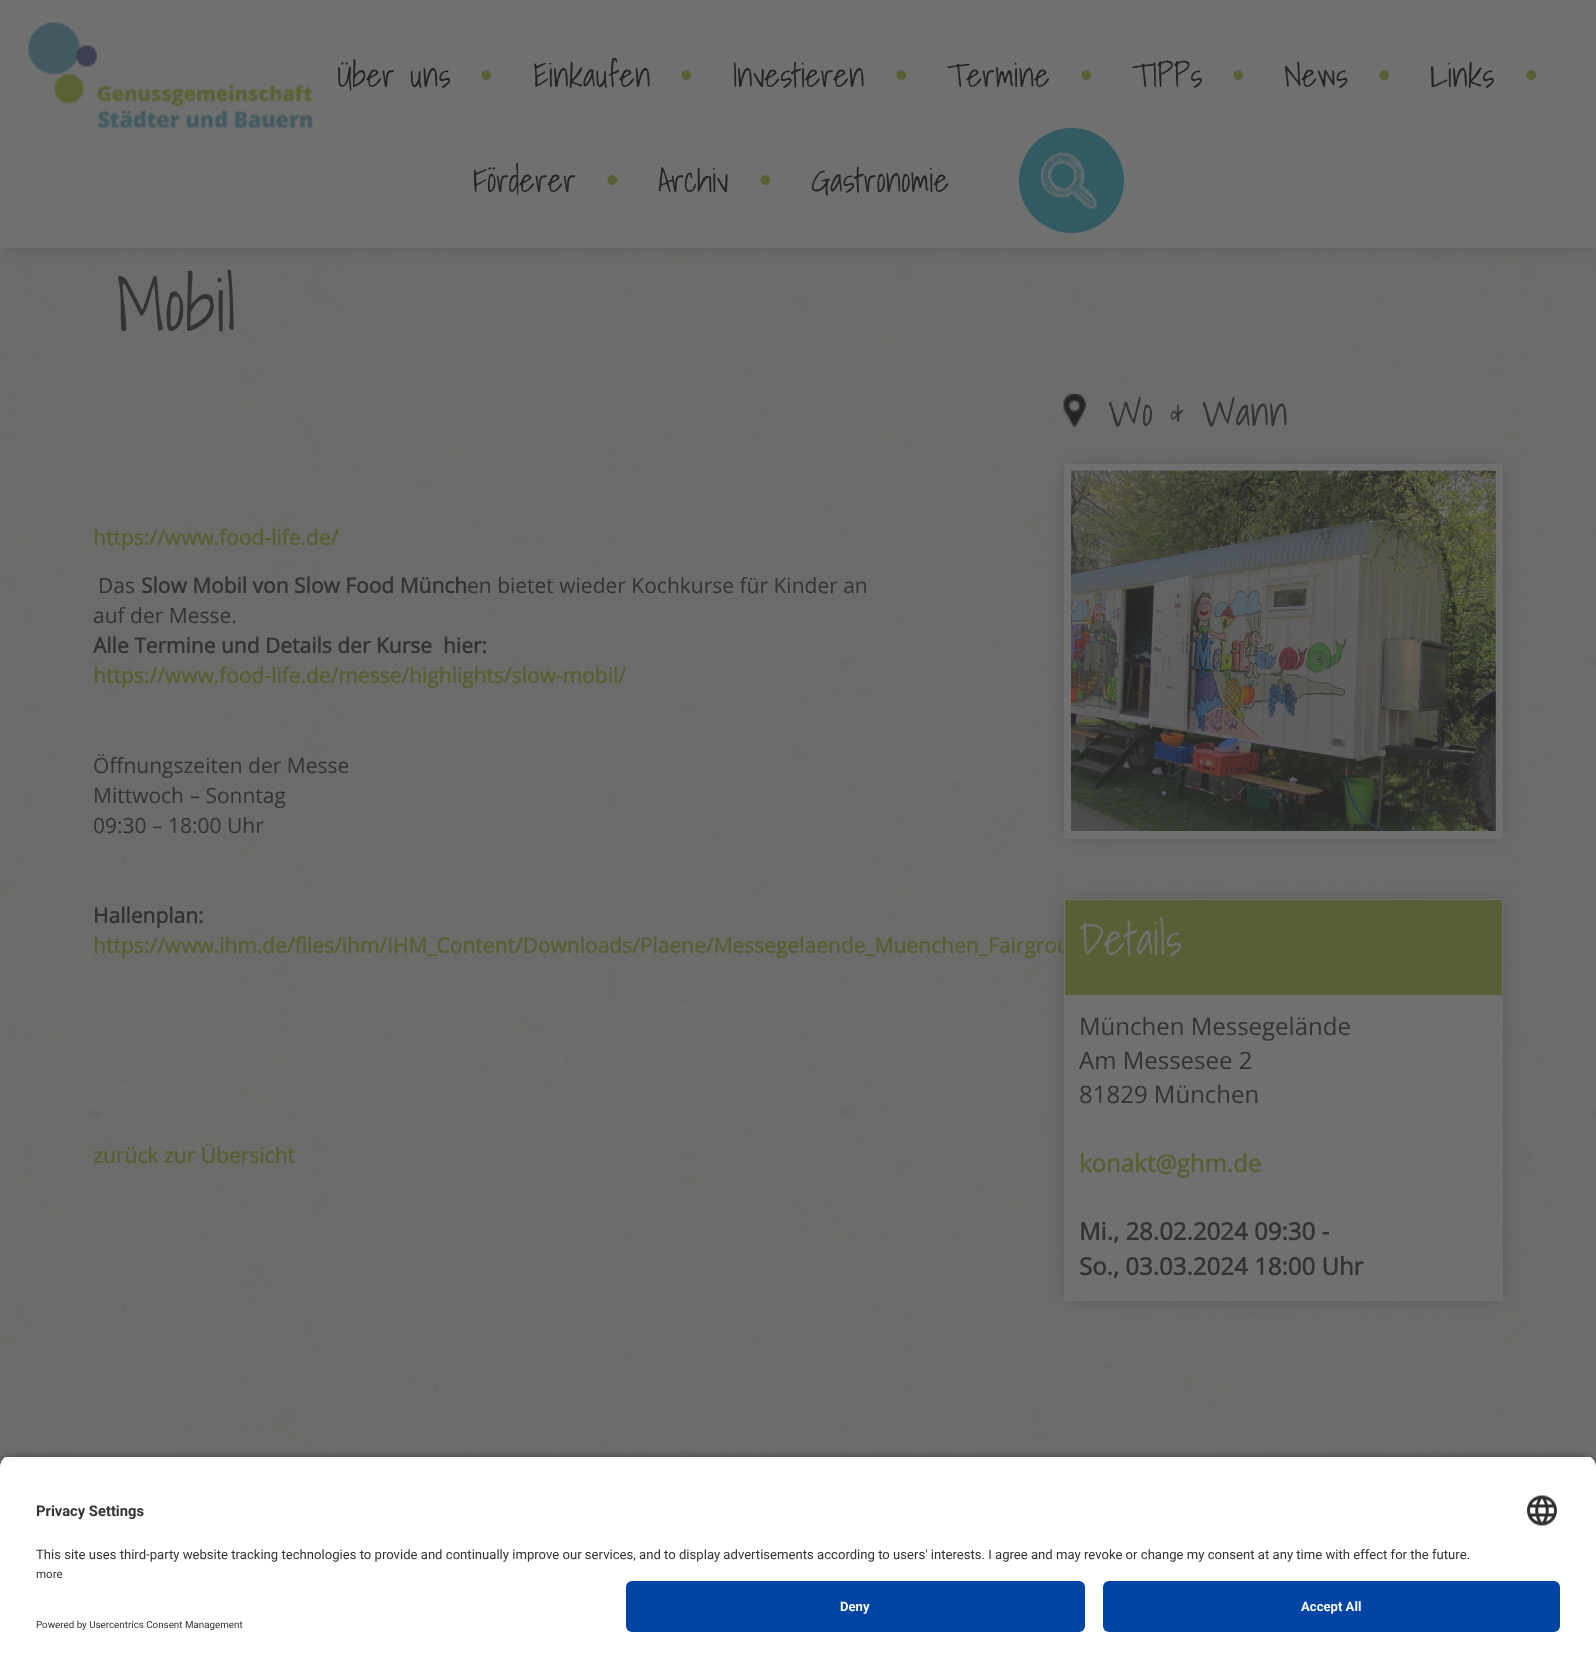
<svg xmlns="http://www.w3.org/2000/svg" width="1596" height="1667">
	<defs>
		<clipPath id="clip1"><path d="M12 1455H1584C1590.5 1455 1596 1460.5 1596 1467V1569H0V1467C0 1460.5 5.5 1455 12 1455Z" /></clipPath>
	</defs>
	<rect width="100%" height="100%" fill="#FFFFFF" />
	<image x="0" y="248" width="1596" height="1219" href="assets/img3.png" />
	<rect x="6" y="6" width="1584" height="236" fill="#242424" fill-opacity="0.4" filter="blur(10.5px)" />
	<rect x="0" y="0" width="1596" height="248" fill="#707070" />
	<image x="28" y="22" width="285" height="106" href="assets/img1.png" />
	<text x="337" y="87" font-family="Shadows Into Light" font-size="33" font-weight="300" fill="#242424">Über uns</text>
	<text x="480" y="87" font-family="Liberation Sans" font-size="36" fill="#595F34">•</text>
	<text x="533" y="87" font-family="Shadows Into Light" font-size="33" font-weight="300" fill="#242424">Einkaufen</text>
	<text x="680" y="87" font-family="Liberation Sans" font-size="36" fill="#595F34">•</text>
	<text x="732" y="87" font-family="Shadows Into Light" font-size="33" font-weight="300" fill="#242424">Investieren</text>
	<text x="895" y="87" font-family="Liberation Sans" font-size="36" fill="#595F34">•</text>
	<text x="947" y="87" font-family="Shadows Into Light" font-size="33" font-weight="300" fill="#242424">Termine</text>
	<text x="1080" y="87" font-family="Liberation Sans" font-size="36" fill="#595F34">•</text>
	<text x="1132" y="87" font-family="Shadows Into Light" font-size="33" font-weight="300" fill="#242424">TIPPs</text>
	<text x="1232" y="87" font-family="Liberation Sans" font-size="36" fill="#595F34">•</text>
	<text x="1284" y="87" font-family="Shadows Into Light" font-size="33" font-weight="300" fill="#242424">News</text>
	<text x="1378" y="87" font-family="Liberation Sans" font-size="36" fill="#595F34">•</text>
	<text x="1430" y="87" font-family="Shadows Into Light" font-size="33" font-weight="300" fill="#242424">Links</text>
	<text x="1525" y="87" font-family="Liberation Sans" font-size="36" fill="#595F34">•</text>
	<text x="473" y="192" font-family="Shadows Into Light" font-size="33" font-weight="300" fill="#242424">Förderer</text>
	<text x="606" y="192" font-family="Liberation Sans" font-size="36" fill="#595F34">•</text>
	<text x="658" y="192" font-family="Shadows Into Light" font-size="33" font-weight="300" fill="#242424">Archiv</text>
	<text x="759" y="192" font-family="Liberation Sans" font-size="36" fill="#595F34">•</text>
	<text x="811" y="192" font-family="Shadows Into Light" font-size="33" font-weight="300" fill="#242424">Gastronomie</text>
	<circle cx="1071.5" cy="180.5" r="52.5" fill="#325A61" />
	<image x="1041" y="152" width="56" height="57" href="assets/img2.png" />
	<text x="116" y="331" font-family="Shadows Into Light" font-size="72" font-weight="300" fill="#333333">Mobil</text>
	<text x="93" y="545" font-family="Open Sans" font-size="21" font-weight="700" fill="#595F34">https://www.food-life.de/</text>
	<text x="98" y="593" font-family="Open Sans" font-size="21" fill="#333333">Das</text>
	<text x="141" y="593" font-family="Open Sans" font-size="21" font-weight="700" fill="#333333">Slow Mobil von Slow Food Münch</text>
	<g font-family="Open Sans" font-size="21" fill="#333333">
		<text x="467" y="593">en bietet wieder Kochkurse für Kinder an</text>
		<text x="93" y="623">auf der Messe.</text>
	</g>
	<text x="93" y="653" font-family="Open Sans" font-size="21" font-weight="700" fill="#333333" xml:space="preserve">Alle Termine und Details der Kurse  hier:</text>
	<text x="93" y="683" font-family="Open Sans" font-size="21" font-weight="700" fill="#595F34">https://www.food-life.de/messe/highlights/slow-mobil/</text>
	<g font-family="Open Sans" font-size="21" fill="#333333">
		<text x="93" y="773">Öffnungszeiten der Messe</text>
		<text x="93" y="803">Mittwoch – Sonntag</text>
		<text x="93" y="833">09:30 – 18:00 Uhr</text>
	</g>
	<text x="93" y="923" font-family="Open Sans" font-size="21" font-weight="700" fill="#333333">Hallenplan:</text>
	<g font-family="Open Sans" font-size="21" font-weight="700" fill="#595F34">
		<text x="93" y="953">https://www.ihm.de/files/ihm/IHM_Content/Downloads/Plaene/Messegelaende_Muenchen_Fairgrou</text>
		<text x="93" y="1163">zurück zur Übersicht</text>
	</g>
	<image x="1063" y="394" width="23" height="33" href="assets/img4.png" />
	<text x="1108" y="426" font-family="Shadows Into Light" font-size="39" font-weight="300" fill="#333333">Wo &amp; Wann</text>
	<rect x="1070" y="470" width="427" height="363" fill="#242424" fill-opacity="0.4" filter="blur(10.5px)" />
	<rect x="1068" y="468" width="431" height="367" fill="none" stroke="#707070" stroke-width="8" />
	<image x="1071" y="470" width="425" height="361" href="assets/img5.png" />
	<rect x="1070" y="905" width="427" height="390" fill="#242424" fill-opacity="0.4" filter="blur(10.5px)" />
	<rect x="1065" y="900" width="437" height="400" fill="none" stroke="#707070" stroke-width="2" />
	<rect x="1065" y="900" width="437" height="95" fill="#595F34" />
	<text x="1079" y="955" font-family="Shadows Into Light" font-size="45" font-weight="300" fill="#707070">Details</text>
	<rect x="1066" y="995" width="435" height="304" fill="#707070" />
	<g font-family="Open Sans" font-size="24" fill="#333333">
		<text x="1079" y="1035">München Messegelände</text>
		<text x="1079" y="1069">Am Messesee 2</text>
		<text x="1079" y="1103">81829 München</text>
	</g>
	<text x="1079" y="1172" font-family="Open Sans" font-size="24" font-weight="700" fill="#595F34">konakt@ghm.de</text>
	<g font-family="Open Sans" font-size="24" font-weight="700" fill="#333333">
		<text x="1079" y="1240">Mi., 28.02.2024 09:30 -</text>
		<text x="1079" y="1275">So., 03.03.2024 18:00 Uhr</text>
	</g>
	<rect x="0" y="1460" width="1596" height="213" rx="12" fill="#000000" fill-opacity="0.8" filter="blur(5px)" />
	<g clip-path="url(#clip1)">
		<rect x="0" y="1457" width="1596" height="112" fill="#FFFFFF" />
	</g>
	<text x="36" y="1516" font-family="Roboto" font-size="14.75" font-weight="700" fill="#333333">Privacy Settings</text>
	<image x="1527" y="1495" width="30" height="31" href="assets/img6.png" />
	<text x="36" y="1559" font-family="Roboto" font-size="13.12" fill="#333333">This site uses third-party website tracking technologies to provide and continually improve our services, and to display advertisements according to users' interests. I agree and may revoke or change my consent at any time with effect for the future.</text>
	<rect x="0" y="1569" width="1596" height="98" fill="#FFFFFF" />
	<text x="36" y="1578" font-family="Roboto" font-size="11.5" fill="#333333">more</text>
	<text x="36" y="1628" font-family="Roboto" font-size="9.8" fill="#333333">Powered by Usercentrics Consent Management</text>
	<rect x="626" y="1581" width="459" height="51" rx="6" fill="#0045A5" />
	<text x="840" y="1611" font-family="Roboto" font-size="13.12" font-weight="700" fill="#FAFAFA">Deny</text>
	<rect x="1103" y="1581" width="457" height="51" rx="6" fill="#0045A5" />
	<text x="1301" y="1611" font-family="Roboto" font-size="13.12" font-weight="700" fill="#FAFAFA">Accept All</text>
</svg>
